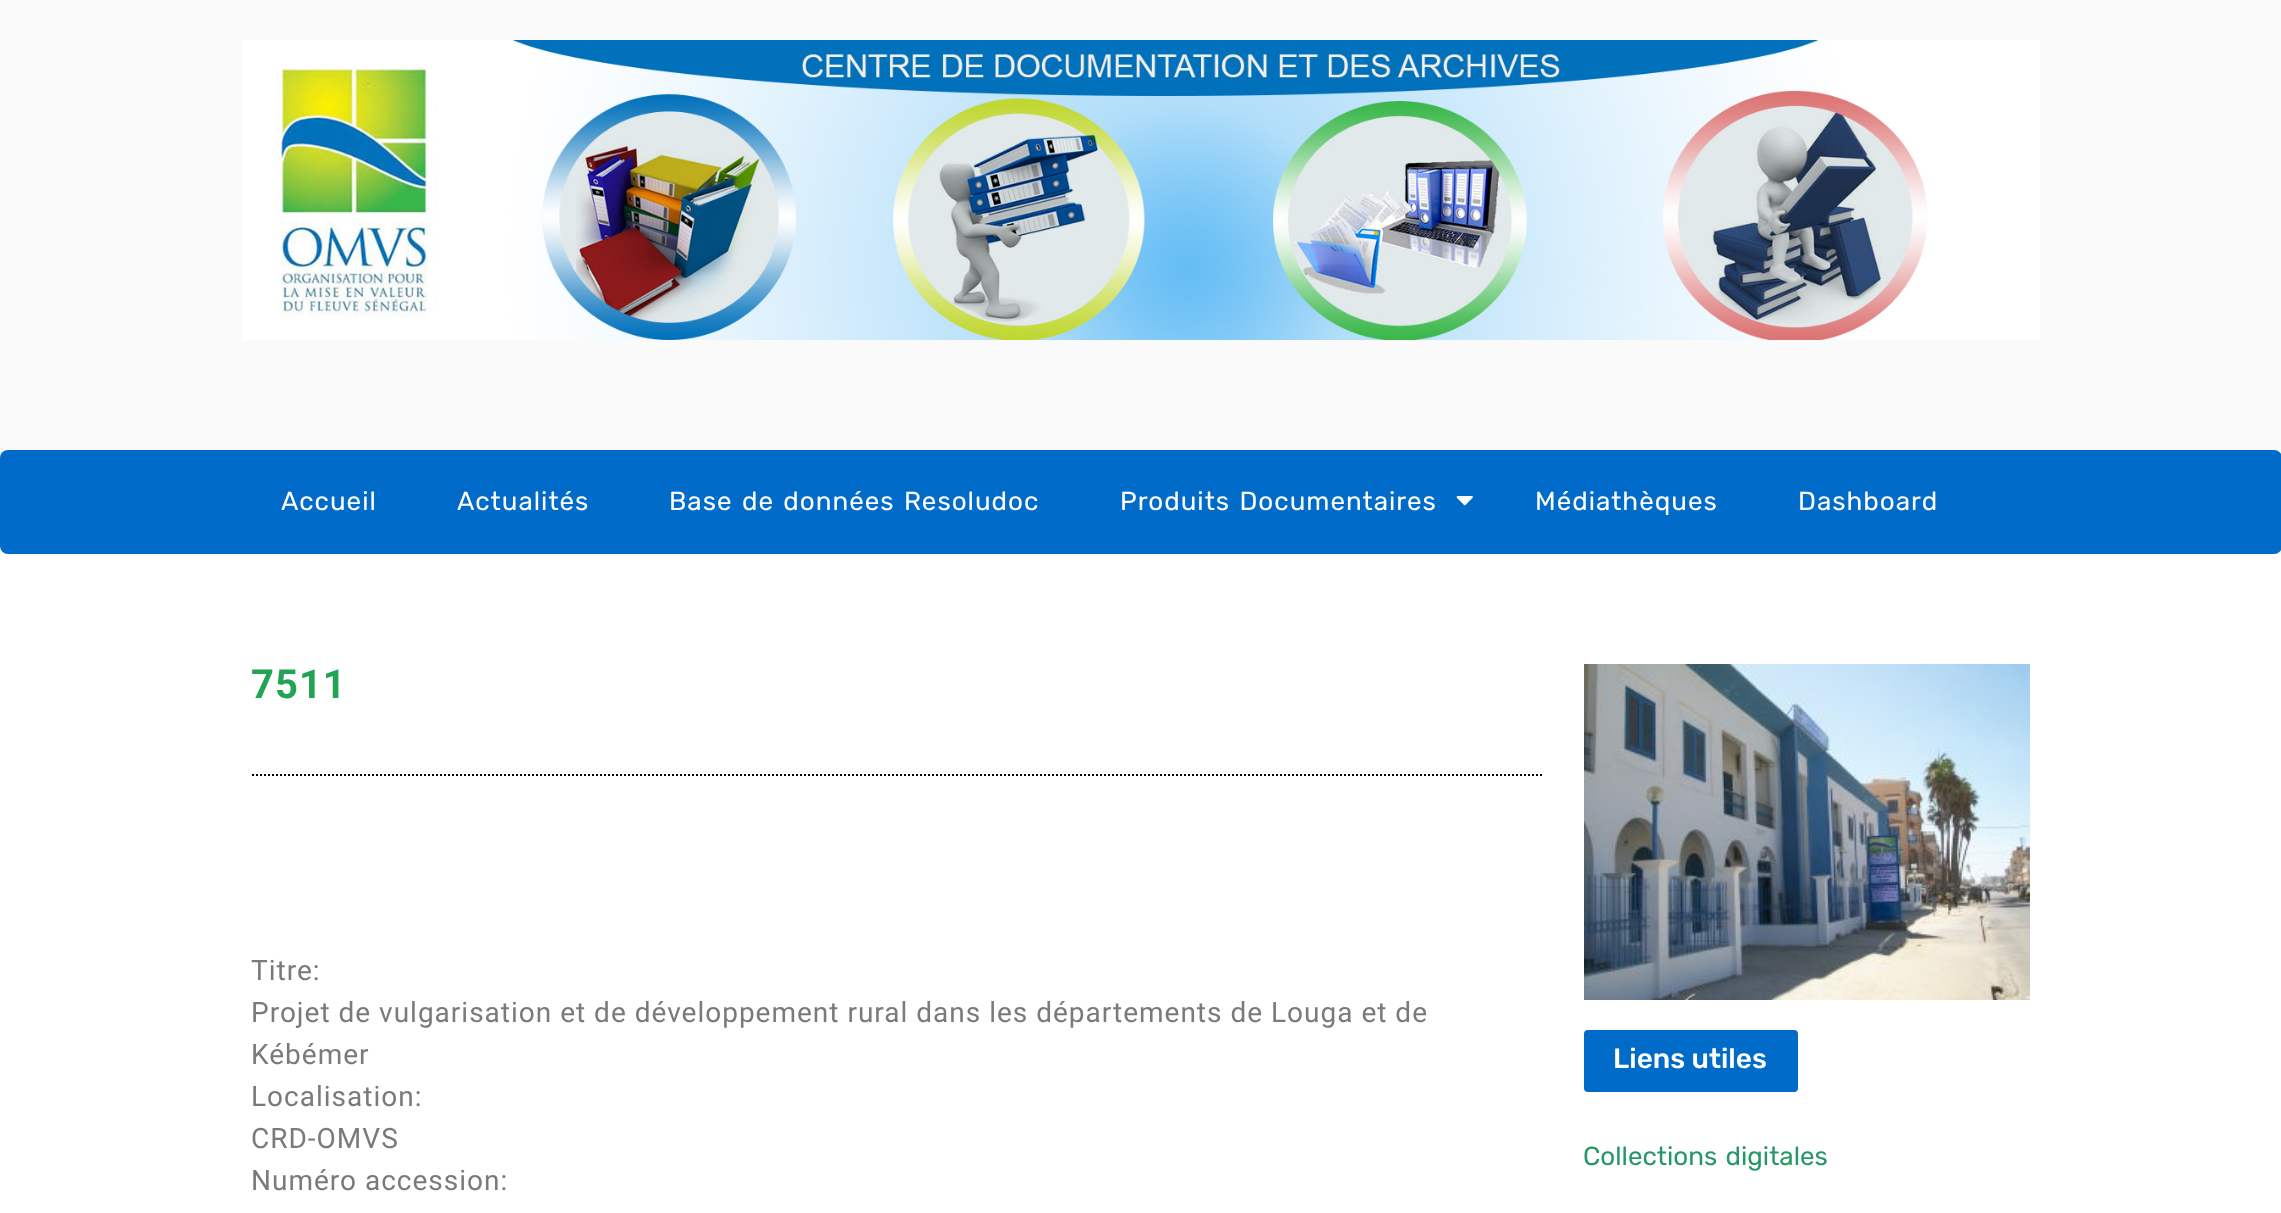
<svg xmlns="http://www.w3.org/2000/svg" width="2281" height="1213">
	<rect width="100%" height="100%" fill="#FFFFFF" />
	<rect x="0" y="0" width="2281" height="554" fill="#FAFAFA" />
	<image x="242" y="40" width="1798" height="300" href="assets/img1.png" />
	<rect x="0" y="450" width="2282" height="104" rx="8" fill="#006BC9" />
	<g font-family="Rubik" font-size="26" letter-spacing="1" fill="#FFFFFF">
		<text x="281" y="510">Accueil</text>
		<text x="457" y="510">Actualités</text>
		<text x="669" y="510" word-spacing="2">Base de données Resoludoc</text>
		<text x="1120" y="510" word-spacing="2">Produits Documentaires</text>
	</g>
	<image x="1456" y="496" width="17" height="10" href="assets/img2.png" />
	<g font-family="Rubik" font-size="26" letter-spacing="1" fill="#FFFFFF">
		<text x="1535" y="510">Médiathèques</text>
		<text x="1798" y="510">Dashboard</text>
	</g>
	<text x="251" y="698" font-family="Roboto" font-size="40" font-weight="700" letter-spacing="1" fill="#23A455">7511</text>
	<path d="M252 775H1544" fill="none" stroke="#000000" stroke-width="2" stroke-dasharray="2 2" />
	<g font-family="Roboto" font-size="28" letter-spacing="1" fill="#7A7A7A">
		<text x="251" y="980">Titre:</text>
		<text x="251" y="1022">Projet de vulgarisation et de développement rural dans les départements de Louga et de</text>
		<text x="251" y="1064">Kébémer</text>
		<text x="251" y="1106">Localisation:</text>
		<text x="251" y="1148">CRD-OMVS</text>
		<text x="251" y="1190">Numéro accession:</text>
	</g>
	<image x="1584" y="664" width="446" height="336" href="assets/img3.png" />
	<rect x="1584" y="1030" width="214" height="62" rx="4" fill="#006BC9" />
	<text x="1613" y="1068" font-family="Rubik" font-size="28" font-weight="500" fill="#FFFFFF">Liens utiles</text>
	<text x="1583" y="1165" word-spacing="2" font-family="Rubik" font-size="26" fill="#269865">Collections digitales</text>
</svg>
